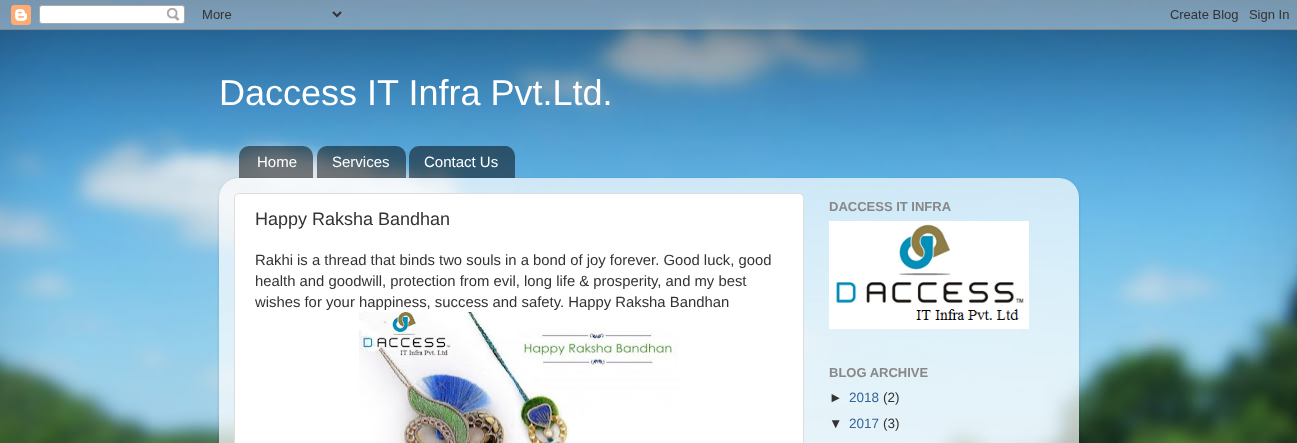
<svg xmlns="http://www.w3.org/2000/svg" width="1297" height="443">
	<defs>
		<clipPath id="clip1"><path d="M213 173H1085V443H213ZM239 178H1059C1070 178 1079 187 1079 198V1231H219V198C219 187 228 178 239 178Z" clip-rule="evenodd" /></clipPath>
	</defs>
	<rect width="100%" height="100%" fill="#FFFFFF" />
	<image x="0" y="0" width="1297" height="443" href="assets/img1.png" />
	<image x="0" y="0" width="1297" height="30" href="assets/img2.png" />
	<text x="219" y="105" font-family="Liberation Sans" font-size="36" fill="#FFFFFF">Daccess IT Infra Pvt.Ltd.</text>
	<image x="239" y="146" width="74" height="32" href="assets/img3.png" />
	<text x="257" y="167" font-family="Liberation Sans" font-size="15" fill="#FFFFFF">Home</text>
	<image x="317" y="146" width="89" height="32" href="assets/img4.png" />
	<text x="332" y="167" font-family="Liberation Sans" font-size="15" fill="#FFFFFF">Services</text>
	<image x="409" y="146" width="106" height="32" href="assets/img5.png" />
	<text x="424" y="167" font-family="Liberation Sans" font-size="15" fill="#FFFFFF">Contact Us</text>
	<g clip-path="url(#clip1)">
		<rect x="219" y="179" width="860" height="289" rx="20" fill="#000000" fill-opacity="0.15" filter="blur(1.5px)" />
	</g>
	<image x="219" y="178" width="860" height="265" href="assets/img6.png" />
	<rect x="234.5" y="193.5" width="569" height="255" rx="4.5" fill="#FFFFFF" stroke="#DDDDDD" />
	<text x="255" y="225" font-family="Liberation Sans" font-size="18" fill="#333333">Happy Raksha Bandhan</text>
	<g font-family="Liberation Sans" font-size="14.85" fill="#333333">
		<text x="255" y="265">Rakhi is a thread that binds two souls in a bond of joy forever. Good luck, good</text>
		<text x="255" y="286">health and goodwill, protection from evil, long life &amp; prosperity, and my best</text>
		<text x="255" y="307">wishes for your happiness, success and safety. Happy Raksha Bandhan</text>
	</g>
	<image x="359" y="312" width="320" height="131" href="assets/img7.png" />
	<text x="829" y="211" font-family="Liberation Sans" font-size="13" font-weight="700" fill="#888888">DACCESS IT INFRA</text>
	<image x="829" y="221" width="200" height="108" href="assets/img8.png" />
	<text x="829" y="377" font-family="Liberation Sans" font-size="13" font-weight="700" fill="#888888">BLOG ARCHIVE</text>
	<text x="829" y="402" font-family="Liberation Sans" font-size="13.5" fill="#333333">►</text>
	<text x="849" y="402" font-family="Liberation Sans" font-size="13.5" fill="#336699">2018</text>
	<g font-family="Liberation Sans" font-size="13.5" fill="#333333">
		<text x="883" y="402">(2)</text>
		<text x="829" y="428">▼</text>
	</g>
	<text x="849" y="428" font-family="Liberation Sans" font-size="13.5" fill="#336699">2017</text>
	<text x="883" y="428" font-family="Liberation Sans" font-size="13.5" fill="#333333">(3)</text>
</svg>
